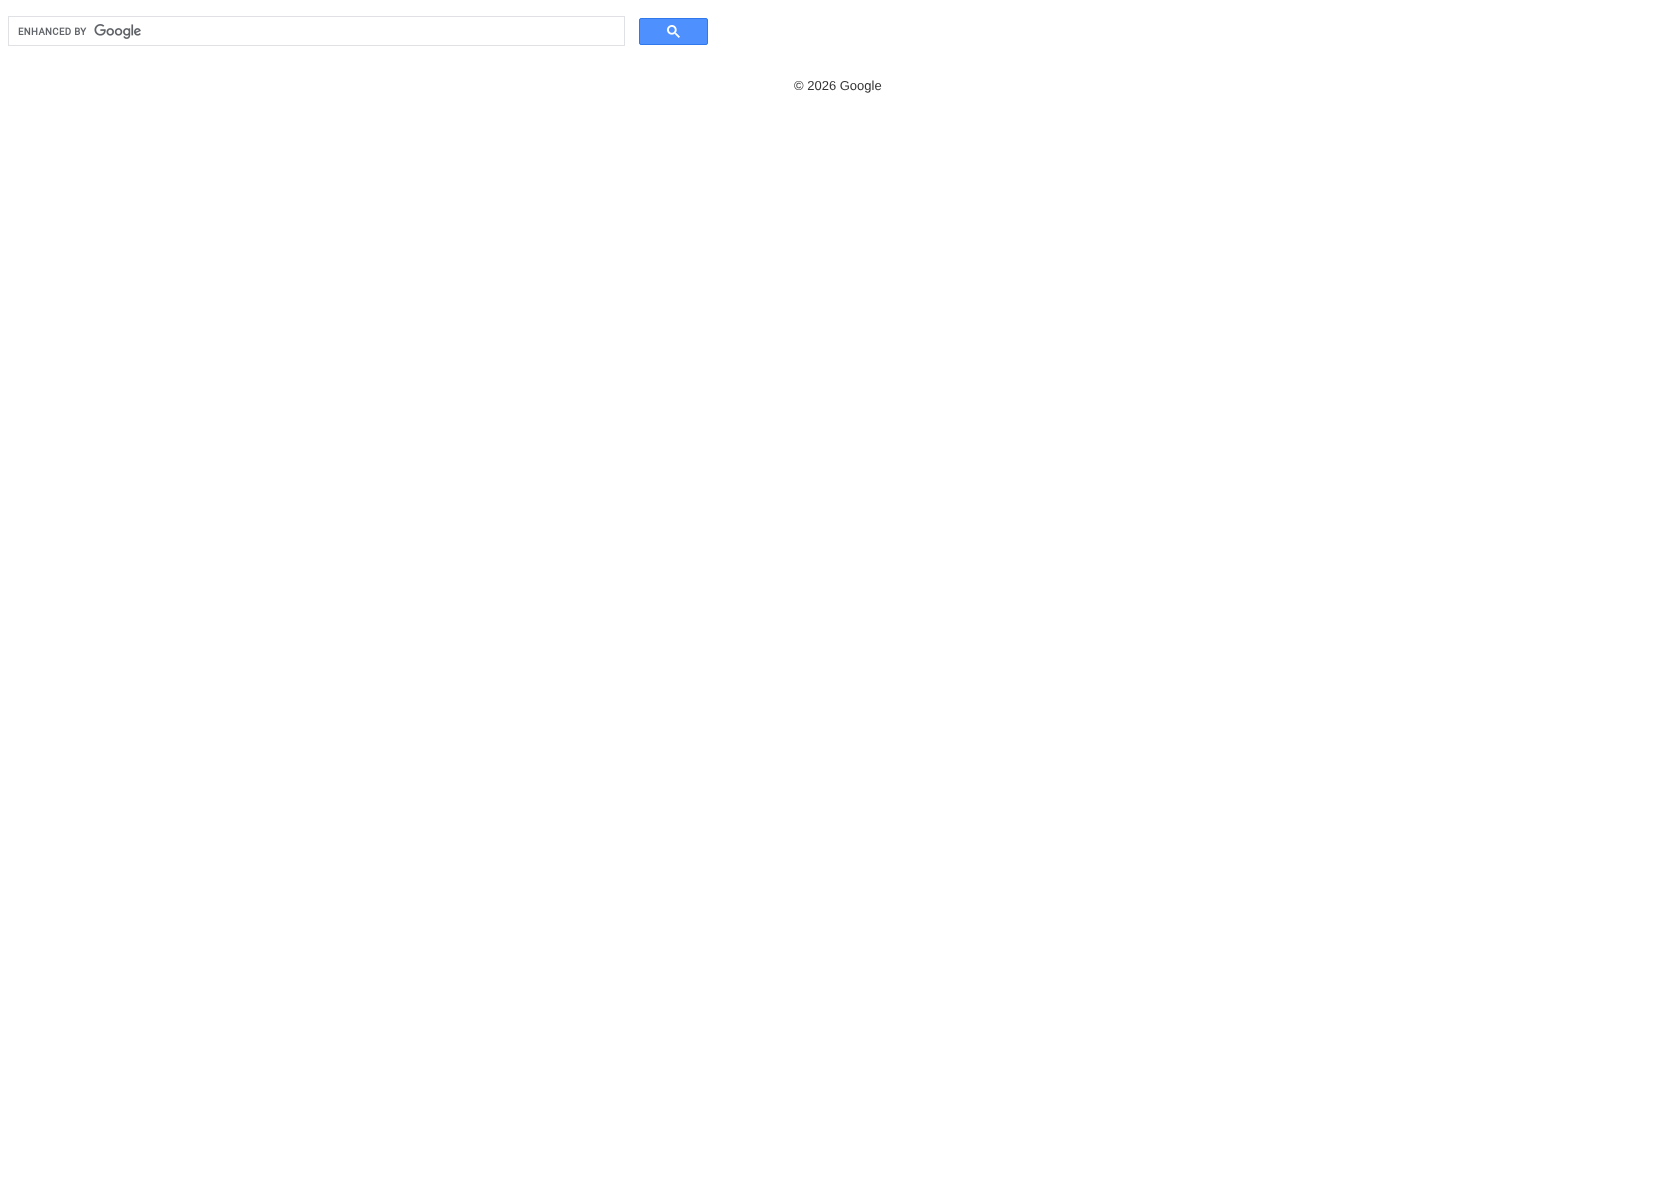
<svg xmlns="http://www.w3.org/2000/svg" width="1677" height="1180">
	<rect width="100%" height="100%" fill="#FFFFFF" />
	<rect x="8.5" y="16.5" width="616" height="29" fill="none" stroke="#DFE1E5" />
	<image x="18" y="24" width="123" height="15" href="assets/img1.png" />
	<rect x="639.5" y="18.5" width="68" height="26" rx="1.5" fill="#4D90FE" stroke="#3079ED" />
	<image x="667" y="25" width="13" height="13" href="assets/img2.png" />
	<text x="794" y="90" font-family="Liberation Sans" font-size="13" fill="#333333">© 2026 Google</text>
</svg>
